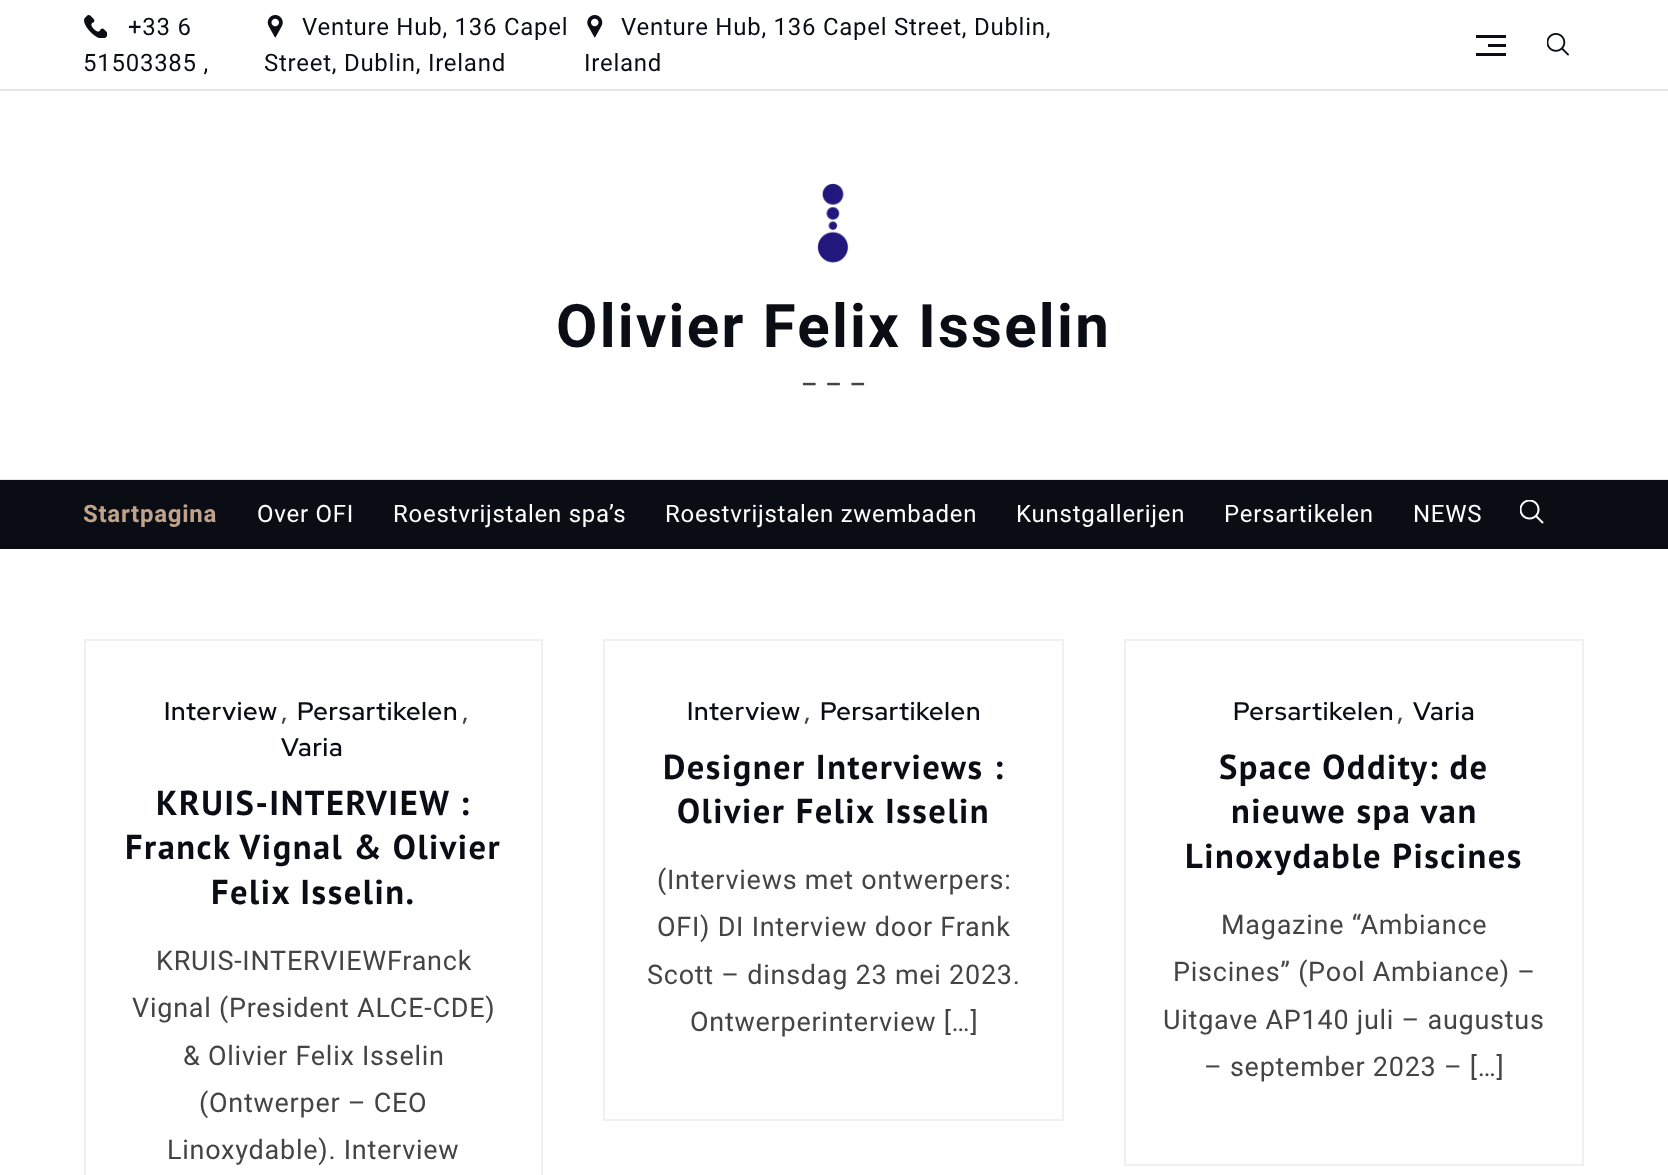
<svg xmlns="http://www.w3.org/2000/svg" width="1668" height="1175">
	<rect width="100%" height="100%" fill="#FFFFFF" />
	<rect x="0" y="479" width="1668" height="1" fill="#E6E6E6" />
	<image x="84" y="15" width="23" height="23" href="assets/img1.png" />
	<g font-family="Roboto" font-size="24" letter-spacing="0.75" fill="#0A0E14">
		<text x="128" y="35">+33 6</text>
		<text x="83" y="71">51503385 ,</text>
	</g>
	<image x="267" y="15" width="16" height="23" href="assets/img2.png" />
	<g font-family="Roboto" font-size="24" letter-spacing="0.75" fill="#0A0E14">
		<text x="302" y="35">Venture Hub, 136 Capel</text>
		<text x="264" y="71">Street, Dublin, Ireland</text>
	</g>
	<image x="587" y="15" width="16" height="23" href="assets/img3.png" />
	<g font-family="Roboto" font-size="24" letter-spacing="0.75" fill="#0A0E14">
		<text x="621" y="35">Venture Hub, 136 Capel Street, Dublin,</text>
		<text x="584" y="71">Ireland</text>
	</g>
	<rect x="1476" y="35" width="30" height="3" fill="#0A0E14" />
	<rect x="1488" y="44" width="18" height="3" fill="#0A0E14" />
	<rect x="1476" y="53" width="30" height="3" fill="#0A0E14" />
	<image x="1547" y="33" width="22" height="23" href="assets/img4.png" />
	<rect x="0" y="89" width="1668" height="2" fill="#E6E6E6" />
	<image x="817" y="183" width="32" height="80" href="assets/img5.png" />
	<text x="556" y="347" font-family="Roboto" font-size="60" font-weight="700" letter-spacing="2.25" fill="#0A0E14">Olivier Felix Isselin</text>
	<text x="801" y="393" font-family="Roboto" font-size="25.5" font-weight="500" letter-spacing="0.75" fill="#444444">– – –</text>
	<rect x="0" y="481" width="1668" height="68" fill="#0A0E14" />
	<rect x="0" y="480" width="1668" height="1" fill="#090D12" />
	<text x="83" y="522" font-family="Roboto" font-size="24" font-weight="700" letter-spacing="0.75" fill="#C1A28B">Startpagina</text>
	<g font-family="Roboto" font-size="24" letter-spacing="0.75" fill="#FFFFFF">
		<text x="257" y="522">Over OFI</text>
		<text x="393" y="522">Roestvrijstalen spa’s</text>
		<text x="665" y="522">Roestvrijstalen zwembaden</text>
		<text x="1016" y="522">Kunstgallerijen</text>
		<text x="1224" y="522">Persartikelen</text>
		<text x="1413" y="522">NEWS</text>
	</g>
	<image x="1520" y="500" width="24" height="24" href="assets/img6.png" />
	<rect x="85" y="640" width="457" height="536" fill="none" stroke="#F0F0F0" stroke-width="2" />
	<text x="164" y="720" font-family="Red Hat Display" font-size="25.5" font-weight="500" letter-spacing="0.75" fill="#0A0E14">Interview</text>
	<text x="281" y="720" font-family="Red Hat Display" font-size="25.5" font-weight="500" letter-spacing="0.75" fill="#444444">,</text>
	<text x="297" y="720" font-family="Red Hat Display" font-size="25.5" font-weight="500" letter-spacing="0.75" fill="#0A0E14">Persartikelen</text>
	<text x="462" y="720" font-family="Red Hat Display" font-size="25.5" font-weight="500" letter-spacing="0.75" fill="#444444">,</text>
	<text x="281" y="756" font-family="Red Hat Display" font-size="25.5" font-weight="500" letter-spacing="0.75" fill="#0A0E14">Varia</text>
	<g font-family="PT Sans" font-size="34.5" font-weight="700" letter-spacing="1.5" fill="#0A0E14">
		<text x="156" y="815">KRUIS-INTERVIEW :</text>
		<text x="125" y="859">Franck Vignal &amp; Olivier</text>
		<text x="211" y="904">Felix Isselin.</text>
	</g>
	<g font-family="Roboto" font-size="27" letter-spacing="0.75" fill="#444444">
		<text x="156" y="970">KRUIS-INTERVIEWFranck</text>
		<text x="132" y="1017">Vignal (President ALCE-CDE)</text>
		<text x="183" y="1065">&amp; Olivier Felix Isselin</text>
		<text x="199" y="1112">(Ontwerper – CEO</text>
		<text x="167" y="1159">Linoxydable). Interview</text>
	</g>
	<rect x="604" y="640" width="459" height="480" fill="none" stroke="#F0F0F0" stroke-width="2" />
	<text x="687" y="720" font-family="Red Hat Display" font-size="25.5" font-weight="500" letter-spacing="0.75" fill="#0A0E14">Interview</text>
	<text x="804" y="720" font-family="Red Hat Display" font-size="25.5" font-weight="500" letter-spacing="0.75" fill="#444444">,</text>
	<text x="820" y="720" font-family="Red Hat Display" font-size="25.5" font-weight="500" letter-spacing="0.75" fill="#0A0E14">Persartikelen</text>
	<g font-family="PT Sans" font-size="34.5" font-weight="700" letter-spacing="1.5" fill="#0A0E14">
		<text x="663" y="779">Designer Interviews :</text>
		<text x="677" y="823">Olivier Felix Isselin</text>
	</g>
	<g font-family="Roboto" font-size="27" letter-spacing="0.75" fill="#444444">
		<text x="657" y="889">(Interviews met ontwerpers:</text>
		<text x="657" y="936">OFI) DI Interview door Frank</text>
		<text x="647" y="984">Scott – dinsdag 23 mei 2023.</text>
		<text x="690" y="1031">Ontwerperinterview […]</text>
	</g>
	<rect x="1125" y="640" width="458" height="525" fill="none" stroke="#F0F0F0" stroke-width="2" />
	<text x="1233" y="720" font-family="Red Hat Display" font-size="25.5" font-weight="500" letter-spacing="0.75" fill="#0A0E14">Persartikelen</text>
	<text x="1397" y="720" font-family="Red Hat Display" font-size="25.5" font-weight="500" letter-spacing="0.75" fill="#444444">,</text>
	<text x="1413" y="720" font-family="Red Hat Display" font-size="25.5" font-weight="500" letter-spacing="0.75" fill="#0A0E14">Varia</text>
	<g font-family="PT Sans" font-size="34.5" font-weight="700" letter-spacing="1.5" fill="#0A0E14">
		<text x="1219" y="779">Space Oddity: de</text>
		<text x="1231" y="823">nieuwe spa van</text>
		<text x="1185" y="868">Linoxydable Piscines</text>
	</g>
	<g font-family="Roboto" font-size="27" letter-spacing="0.75" fill="#444444">
		<text x="1221" y="934">Magazine “Ambiance</text>
		<text x="1173" y="981">Piscines” (Pool Ambiance) –</text>
		<text x="1163" y="1029">Uitgave AP140 juli – augustus</text>
		<text x="1204" y="1076">– september 2023 – […]</text>
	</g>
</svg>
